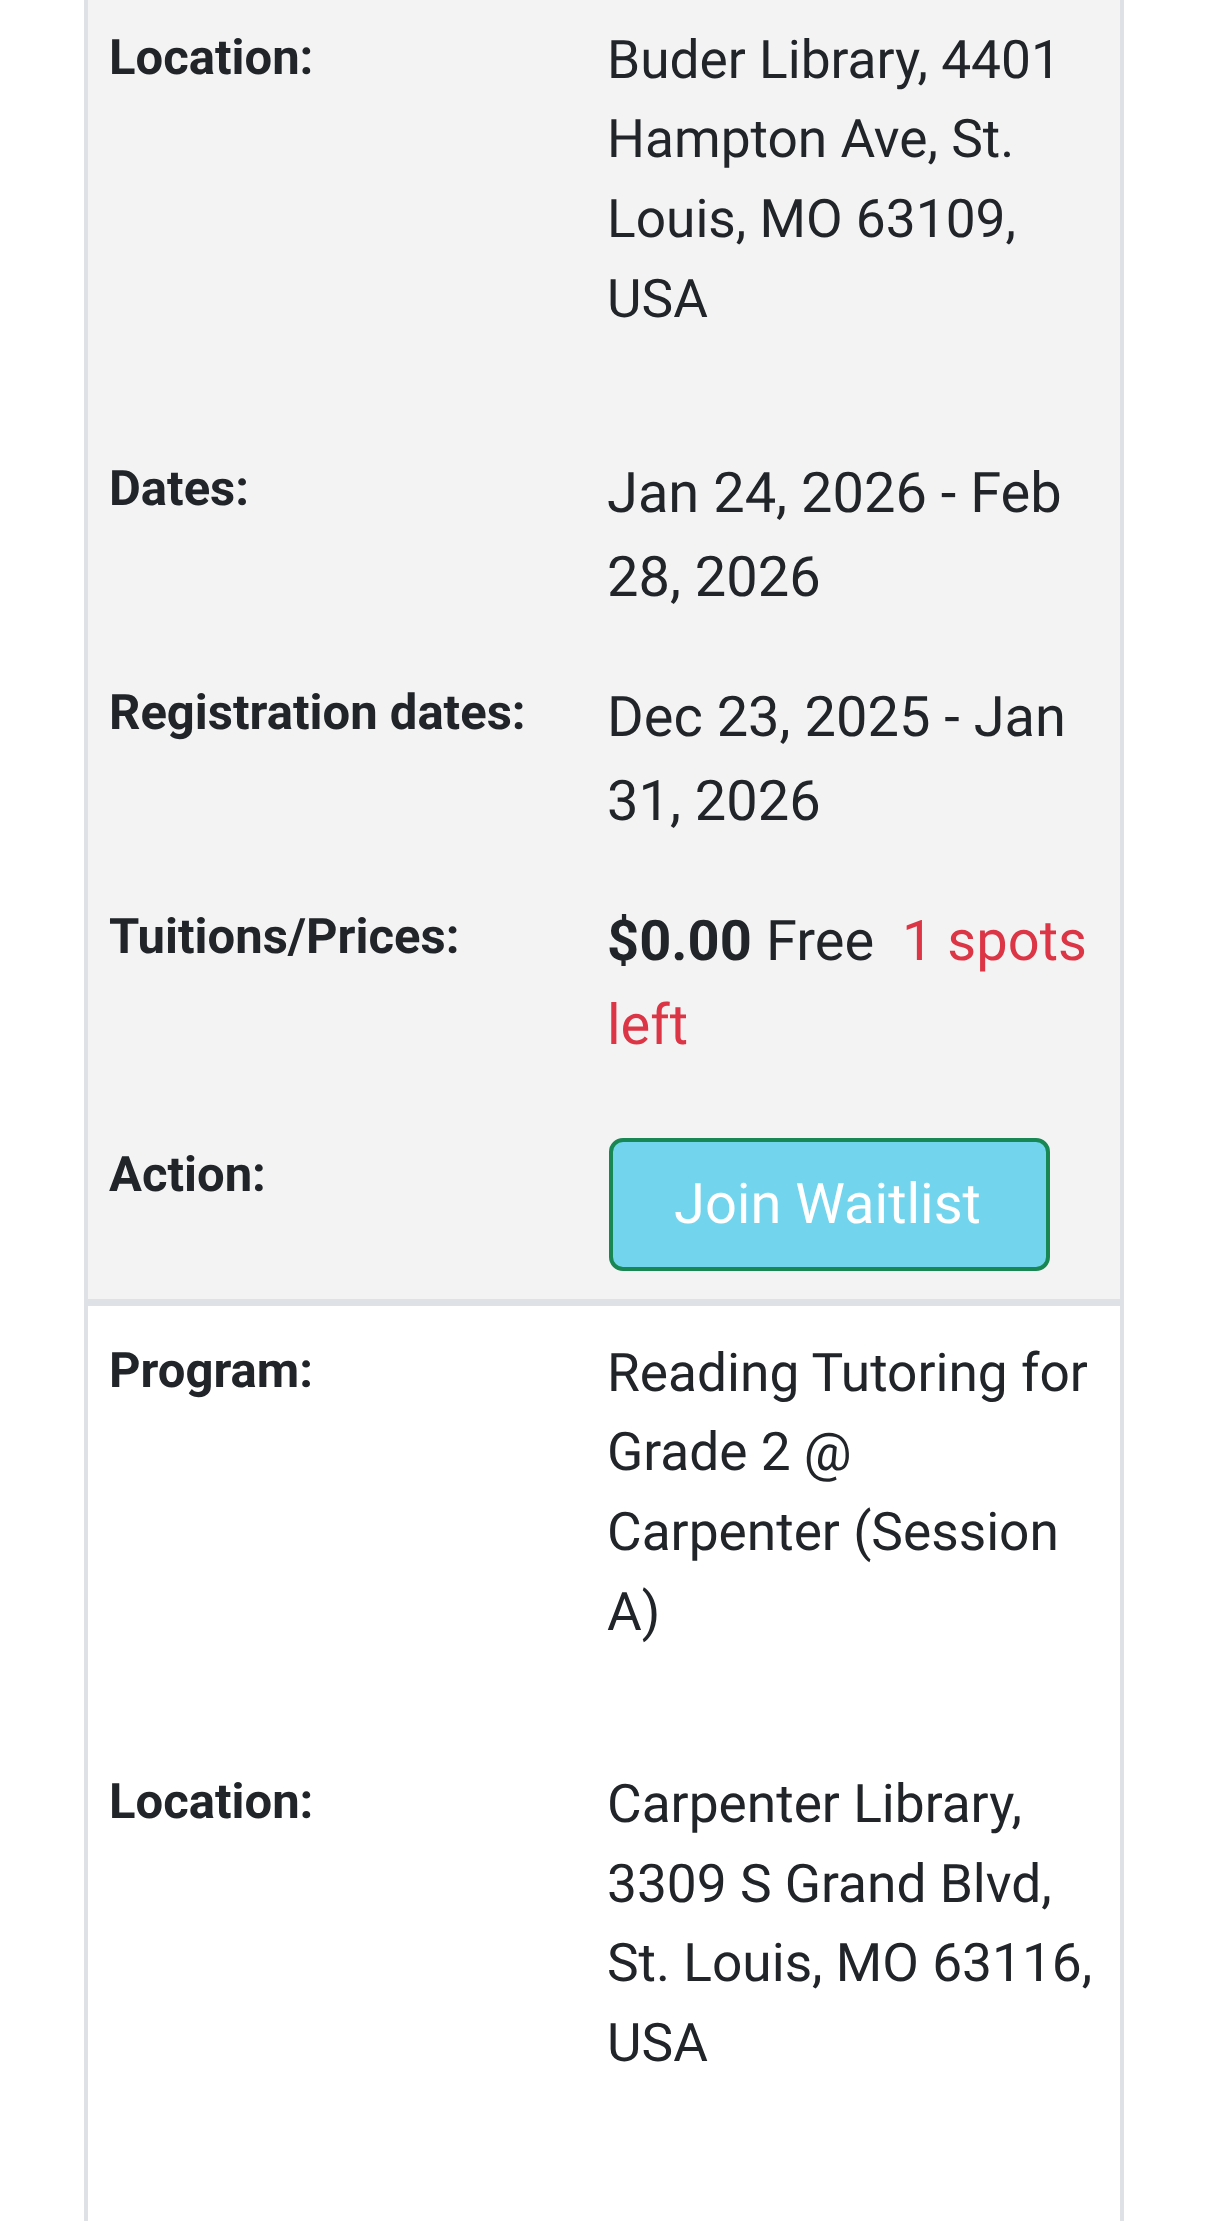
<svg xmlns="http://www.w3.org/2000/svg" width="1206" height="2221">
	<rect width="100%" height="100%" fill="#FFFFFF" />
	<rect x="84" y="1299" width="1040" height="7" fill="#DEE2E6" />
	<rect x="88" y="0" width="1032" height="1299" fill="#F3F3F3" />
	<rect x="1120" y="0" width="4" height="1299" fill="#DEE2E6" />
	<rect x="84" y="0" width="4" height="1299" fill="#DEE2E6" />
	<text x="109" y="74" font-family="Roboto" font-size="49" font-weight="700" fill="#212529">Location:</text>
	<g font-family="Roboto" font-size="53.25" fill="#212529">
		<text x="607" y="78">Buder Library, 4401</text>
		<text x="607" y="157">Hampton Ave, St.</text>
		<text x="607" y="237">Louis, MO 63109,</text>
		<text x="607" y="317">USA</text>
	</g>
	<text x="109" y="505" font-family="Roboto" font-size="49" font-weight="700" fill="#212529">Dates:</text>
	<g font-family="Roboto" font-size="56" fill="#212529">
		<text x="607" y="512">Jan 24, 2026 - Feb</text>
		<text x="607" y="596">28, 2026</text>
	</g>
	<text x="109" y="729" font-family="Roboto" font-size="49" font-weight="700" fill="#212529">Registration dates:</text>
	<g font-family="Roboto" font-size="56" fill="#212529">
		<text x="607" y="736">Dec 23, 2025 - Jan</text>
		<text x="607" y="820">31, 2026</text>
	</g>
	<text x="109" y="953" font-family="Roboto" font-size="49" font-weight="700" fill="#212529">Tuitions/Prices:</text>
	<text x="607" y="960" font-family="Roboto" font-size="56" font-weight="700" fill="#212529">$0.00</text>
	<text x="766" y="960" font-family="Roboto" font-size="56" fill="#212529">Free</text>
	<g font-family="Roboto" font-size="56" fill="#DC3545">
		<text x="902" y="960">1 spots</text>
		<text x="607" y="1044">left</text>
	</g>
	<text x="109" y="1191" font-family="Roboto" font-size="49" font-weight="700" fill="#212529">Action:</text>
	<rect x="611" y="1140" width="437" height="129" rx="12" fill="#73D4EE" stroke="#198754" stroke-width="4" />
	<text x="674" y="1223" font-family="Roboto" font-size="56" fill="#FFFFFF">Join Waitlist</text>
	<rect x="1120" y="1306" width="4" height="915" fill="#DEE2E6" />
	<rect x="84" y="1306" width="4" height="915" fill="#DEE2E6" />
	<text x="109" y="1387" font-family="Roboto" font-size="49" font-weight="700" fill="#212529">Program:</text>
	<g font-family="Roboto" font-size="53.25" fill="#212529">
		<text x="607" y="1391">Reading Tutoring for</text>
		<text x="607" y="1470">Grade 2 @</text>
		<text x="607" y="1550">Carpenter (Session</text>
		<text x="607" y="1630">A)</text>
	</g>
	<text x="109" y="1818" font-family="Roboto" font-size="49" font-weight="700" fill="#212529">Location:</text>
	<g font-family="Roboto" font-size="53.25" fill="#212529">
		<text x="607" y="1822">Carpenter Library,</text>
		<text x="607" y="1902">3309 S Grand Blvd,</text>
		<text x="607" y="1981">St. Louis, MO 63116,</text>
		<text x="607" y="2061">USA</text>
	</g>
</svg>
